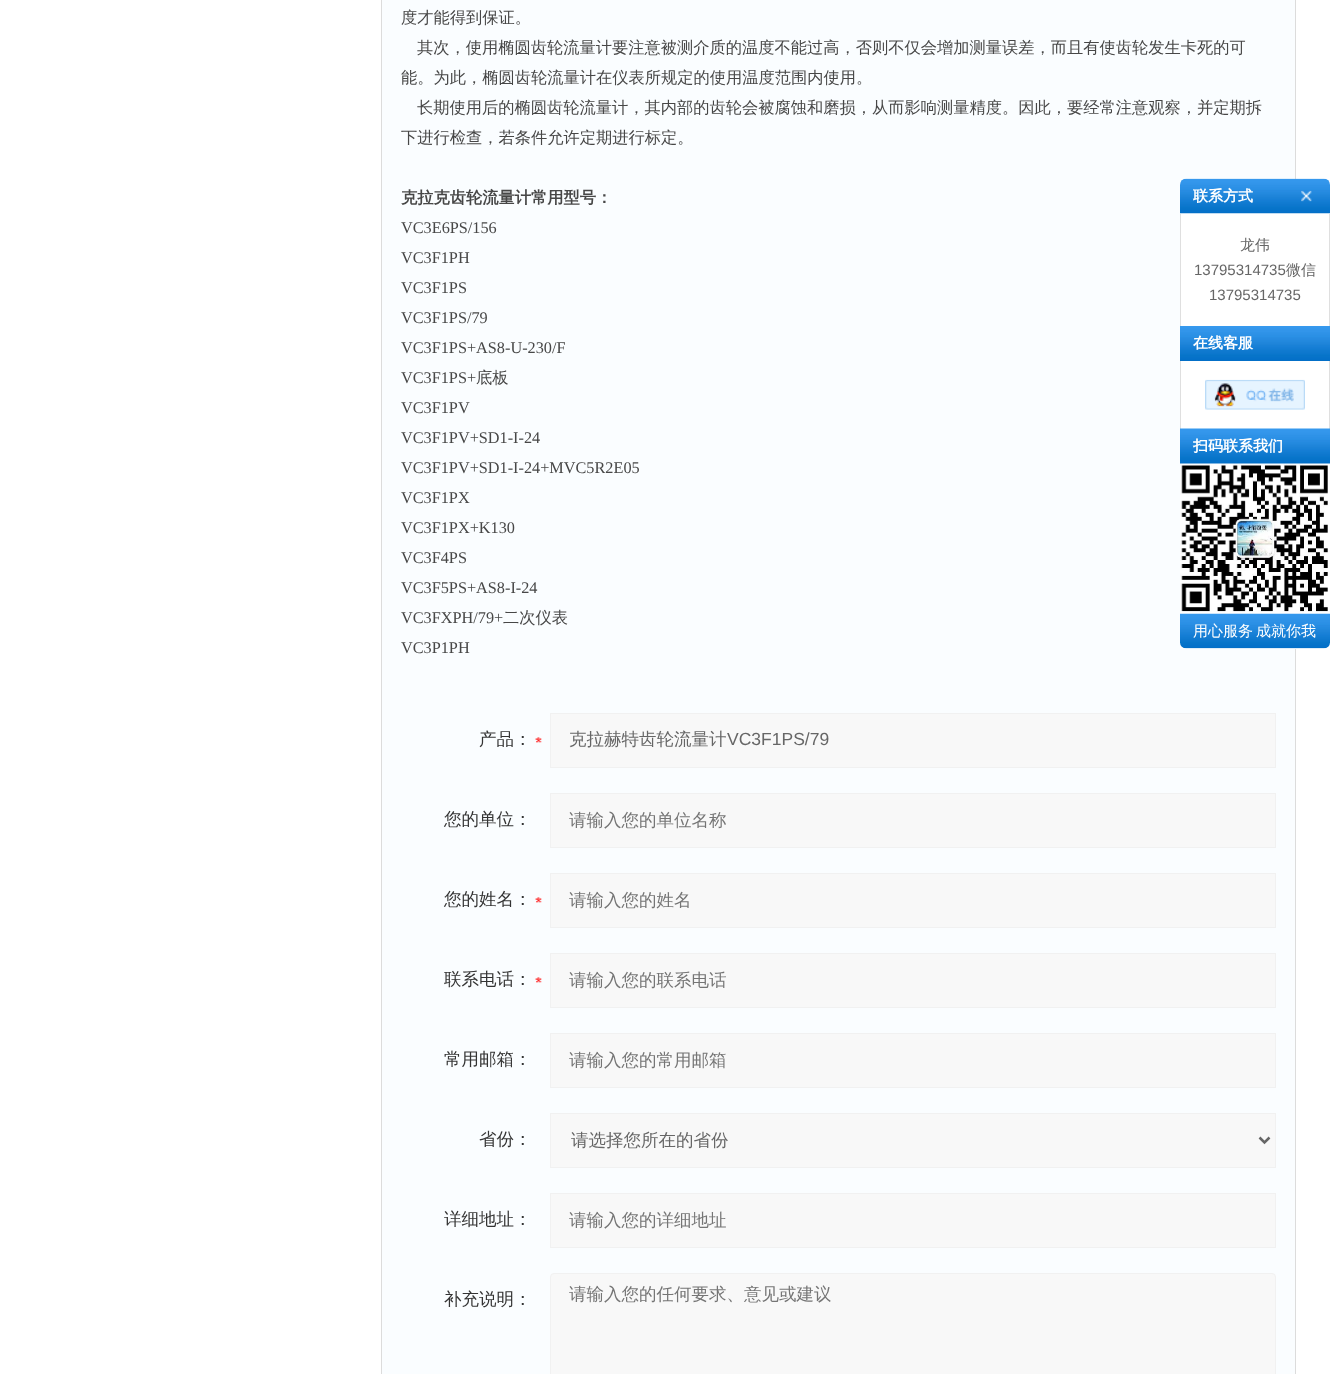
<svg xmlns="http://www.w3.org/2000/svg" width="1341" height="1374">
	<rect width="100%" height="100%" fill="#FFFFFF" />
	<rect x="381.5" y="-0.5" width="914" height="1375" fill="#FAFDFF" stroke="#DCDCDC" />
	<g font-family="WenQuanYi Zen Hei" font-size="16.25" font-weight="500" fill="#474747">
		<text x="401" y="23">度才能得到保证。</text>
		<text x="417" y="53">其次，使用椭圆齿轮流量计要注意被测介质的温度不能过高，否则不仅会增加测量误差，而且有使齿轮发生卡死的可</text>
		<text x="401" y="83">能。为此，椭圆齿轮流量计在仪表所规定的使用温度范围内使用。</text>
		<text x="417" y="113">长期使用后的椭圆齿轮流量计，其内部的齿轮会被腐蚀和磨损，从而影响测量精度。因此，要经常注意观察，并定期拆</text>
		<text x="401" y="143">下进行检查，若条件允许定期进行标定。</text>
	</g>
	<text x="401" y="203" font-family="WenQuanYi Zen Hei" font-size="16.25" font-weight="700" fill="#474747">克拉克齿轮流量计常用型号：</text>
	<g font-family="Liberation Serif" font-size="16.25" fill="#474747">
		<text x="401" y="233">VC3E6PS/156</text>
		<text x="401" y="263">VC3F1PH</text>
		<text x="401" y="293">VC3F1PS</text>
		<text x="401" y="323">VC3F1PS/79</text>
		<text x="401" y="353">VC3F1PS+AS8-U-230/F</text>
		<text x="401" y="383">VC3F1PS+</text>
	</g>
	<text x="476" y="383" font-family="WenQuanYi Zen Hei" font-size="16.25" font-weight="500" fill="#474747">底板</text>
	<g font-family="Liberation Serif" font-size="16.25" fill="#474747">
		<text x="401" y="413">VC3F1PV</text>
		<text x="401" y="443">VC3F1PV+SD1-I-24</text>
		<text x="401" y="473">VC3F1PV+SD1-I-24+MVC5R2E05</text>
		<text x="401" y="503">VC3F1PX</text>
		<text x="401" y="533">VC3F1PX+K130</text>
		<text x="401" y="563">VC3F4PS</text>
		<text x="401" y="593">VC3F5PS+AS8-I-24</text>
		<text x="401" y="623">VC3FXPH/79+</text>
	</g>
	<text x="503" y="623" font-family="WenQuanYi Zen Hei" font-size="16.25" font-weight="500" fill="#474747">二次仪表</text>
	<text x="401" y="653" font-family="Liberation Serif" font-size="16.25" fill="#474747">VC3P1PH</text>
	<image x="535" y="737" width="7" height="6" href="assets/img1.png" />
	<text x="479" y="745" font-family="WenQuanYi Zen Hei" font-size="17.5" font-weight="500" fill="#333333">产品：</text>
	<rect x="550.5" y="713.5" width="725" height="54" fill="#F8F8F8" stroke="#F1F1F1" />
	<text x="569" y="745" font-family="WenQuanYi Zen Hei" font-size="17.5" font-weight="500" fill="#666666">克拉赫特齿轮流量计</text>
	<text x="727" y="745" font-family="Liberation Sans" font-size="17.5" fill="#666666">VC3F1PS/79</text>
	<text x="444" y="825" font-family="WenQuanYi Zen Hei" font-size="17.5" font-weight="500" fill="#333333">您的单位：</text>
	<rect x="550.5" y="793.5" width="725" height="54" fill="#F8F8F8" stroke="#F1F1F1" />
	<text x="569" y="826" font-family="WenQuanYi Zen Hei" font-size="17.5" font-weight="500" fill="#757575">请输入您的单位名称</text>
	<image x="535" y="897" width="7" height="6" href="assets/img1.png" />
	<text x="444" y="905" font-family="WenQuanYi Zen Hei" font-size="17.5" font-weight="500" fill="#333333">您的姓名：</text>
	<rect x="550.5" y="873.5" width="725" height="54" fill="#F8F8F8" stroke="#F1F1F1" />
	<text x="569" y="906" font-family="WenQuanYi Zen Hei" font-size="17.5" font-weight="500" fill="#757575">请输入您的姓名</text>
	<image x="535" y="977" width="7" height="6" href="assets/img1.png" />
	<text x="444" y="985" font-family="WenQuanYi Zen Hei" font-size="17.5" font-weight="500" fill="#333333">联系电话：</text>
	<rect x="550.5" y="953.5" width="725" height="54" fill="#F8F8F8" stroke="#F1F1F1" />
	<text x="569" y="986" font-family="WenQuanYi Zen Hei" font-size="17.5" font-weight="500" fill="#757575">请输入您的联系电话</text>
	<text x="444" y="1065" font-family="WenQuanYi Zen Hei" font-size="17.5" font-weight="500" fill="#333333">常用邮箱：</text>
	<rect x="550.5" y="1033.5" width="725" height="54" fill="#F8F8F8" stroke="#F1F1F1" />
	<text x="569" y="1066" font-family="WenQuanYi Zen Hei" font-size="17.5" font-weight="500" fill="#757575">请输入您的常用邮箱</text>
	<text x="479" y="1145" font-family="WenQuanYi Zen Hei" font-size="17.5" font-weight="500" fill="#333333">省份：</text>
	<rect x="550.5" y="1113.5" width="725" height="54" fill="#F8F8F8" stroke="#F1F1F1" />
	<path d="M1259.5 1137.5L1264.5 1142.5L1269.5 1137.5" fill="none" stroke="#666666" stroke-width="2.5" />
	<text x="571" y="1146" font-family="WenQuanYi Zen Hei" font-size="17.5" font-weight="500" fill="#666666">请选择您所在的省份</text>
	<text x="444" y="1225" font-family="WenQuanYi Zen Hei" font-size="17.5" font-weight="500" fill="#333333">详细地址：</text>
	<rect x="550.5" y="1193.5" width="725" height="54" fill="#F8F8F8" stroke="#F1F1F1" />
	<text x="569" y="1226" font-family="WenQuanYi Zen Hei" font-size="17.5" font-weight="500" fill="#757575">请输入您的详细地址</text>
	<text x="444" y="1305" font-family="WenQuanYi Zen Hei" font-size="17.5" font-weight="500" fill="#333333">补充说明：</text>
	<rect x="550.5" y="1273.5" width="725" height="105" rx="3.5" fill="#F8F8F8" stroke="#F1F1F1" />
	<text x="569" y="1300" font-family="WenQuanYi Zen Hei" font-size="17.5" font-weight="500" fill="#757575">请输入您的任何要求、意见或建议</text>
	<rect x="1180" y="179" width="116" height="470" fill="#FFFFFF" />
	<image x="1180" y="178" width="150" height="36" href="assets/img2.png" />
	<text x="1193" y="201" font-family="WenQuanYi Zen Hei" font-size="15" font-weight="700" fill="#FFFFFF">联系方式</text>
	<image x="1301" y="190" width="11" height="12" href="assets/img3.png" />
	<rect x="1329" y="214" width="1" height="112" fill="#DFDFDF" />
	<rect x="1180" y="214" width="1" height="112" fill="#DFDFDF" />
	<text x="1240" y="250" font-family="WenQuanYi Zen Hei" font-size="15" font-weight="500" fill="#666666">龙伟</text>
	<text x="1194" y="275" font-family="Liberation Sans" font-size="15" fill="#666666">13795314735</text>
	<text x="1286" y="275" font-family="WenQuanYi Zen Hei" font-size="15" font-weight="500" fill="#666666">微信</text>
	<text x="1209" y="300" font-family="Liberation Sans" font-size="15" fill="#666666">13795314735</text>
	<image x="1180" y="326" width="150" height="35" href="assets/img4.png" />
	<text x="1193" y="348" font-family="WenQuanYi Zen Hei" font-size="15" font-weight="700" fill="#FFFFFF">在线客服</text>
	<rect x="1329" y="361" width="1" height="68" fill="#DFDFDF" />
	<rect x="1180" y="361" width="1" height="68" fill="#DFDFDF" />
	<image x="1205" y="379" width="100" height="31" href="assets/img5.png" />
	<image x="1180" y="463" width="148" height="149" href="assets/img7.png" />
	<image x="1180" y="428" width="150" height="36" href="assets/img6.png" />
	<text x="1193" y="451" font-family="WenQuanYi Zen Hei" font-size="15" font-weight="700" fill="#FFFFFF">扫码联系我们</text>
	<image x="1180" y="613" width="150" height="36" href="assets/img8.png" />
	<g font-family="WenQuanYi Zen Hei" font-size="15" font-weight="500" fill="#FFFFFF">
		<text x="1193" y="636">用心服务</text>
		<text x="1256" y="636">成就你我</text>
	</g>
</svg>
